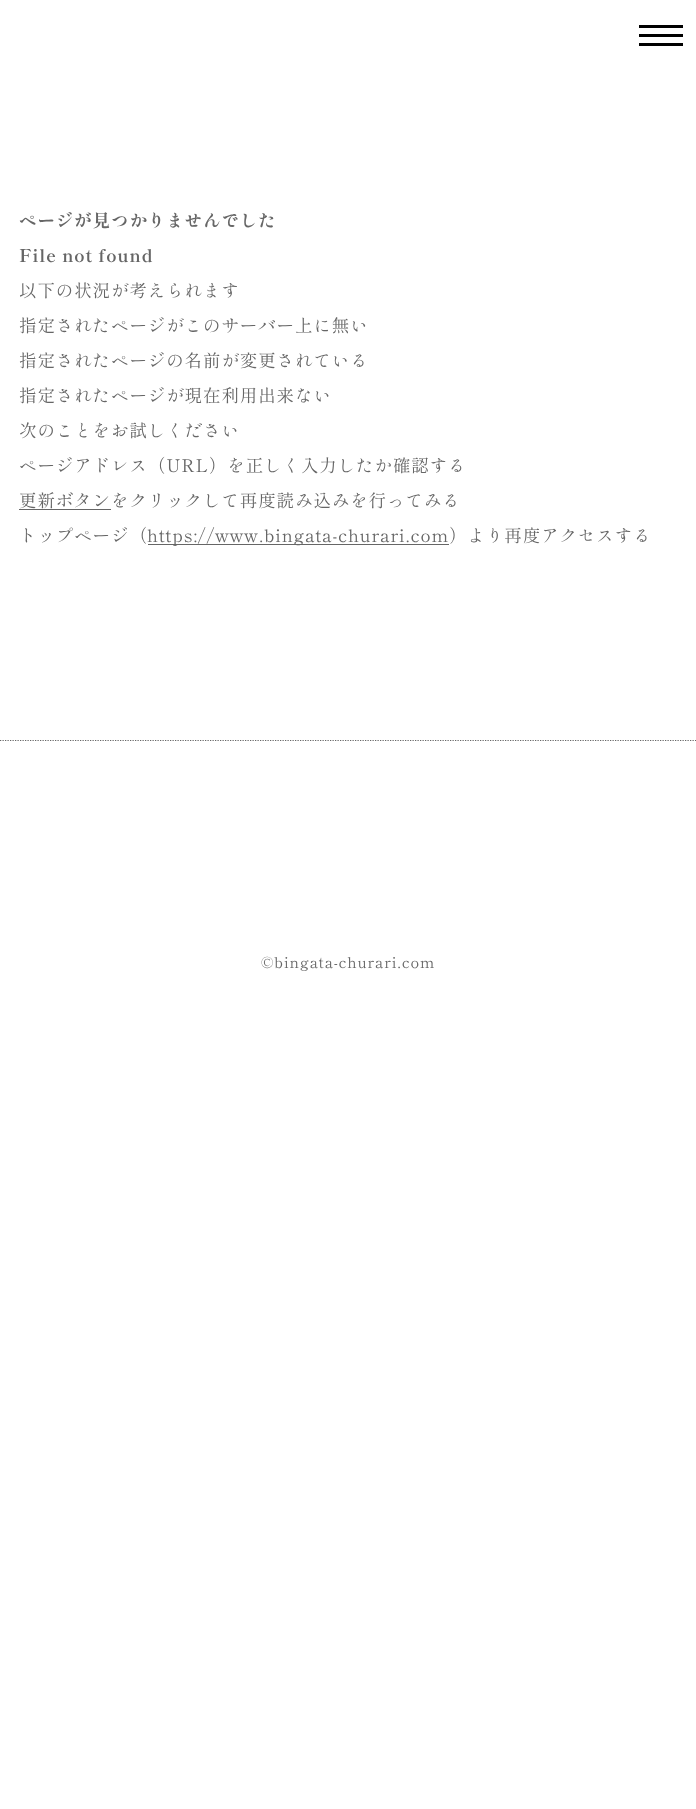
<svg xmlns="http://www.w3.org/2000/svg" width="696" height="1809">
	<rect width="100%" height="100%" fill="#FFFFFF" />
	<rect x="639" y="25" width="44" height="3" fill="#000000" />
	<rect x="639" y="34" width="44" height="3" fill="#000000" />
	<rect x="639" y="43" width="44" height="3" fill="#000000" />
	<g font-family="Shippori Mincho" font-size="17.5" font-weight="700" letter-spacing="0.9" fill="#666666">
		<text x="19" y="227">ページが見つかりませんでした</text>
		<text x="19" y="262">File not found</text>
	</g>
	<g font-family="Shippori Mincho" font-size="17.5" letter-spacing="0.9" fill="#666666">
		<text x="19" y="297">以下の状況が考えられます</text>
		<text x="19" y="332">指定されたページがこのサーバー上に無い</text>
		<text x="19" y="367">指定されたページの名前が変更されている</text>
		<text x="19" y="402">指定されたページが現在利用出来ない</text>
		<text x="19" y="437">次のことをお試しください</text>
		<text x="19" y="472">ページアドレス（URL）を正しく入力したか確認する</text>
		<text x="19" y="507">更新ボタンをクリックして再度読み込みを行ってみる</text>
	</g>
	<rect x="19" y="509" width="92" height="1" fill="#666666" />
	<text x="19" y="542" font-family="Shippori Mincho" font-size="17.5" letter-spacing="0.9" fill="#666666">トップページ（</text>
	<rect x="148" y="544" width="301" height="1" fill="#666666" />
	<text x="147" y="542" font-family="Shippori Mincho" font-size="17.5" letter-spacing="0.9" fill="#666666">https://www.bingata-churari.com）より再度アクセスする</text>
	<path d="M0 740.5H696" fill="none" stroke="#666666" stroke-width="1.2" stroke-dasharray="1.25 1.25" />
	<text x="261" y="968" font-family="Shippori Mincho" font-size="15" letter-spacing="0.9" fill="#666666">©︎bingata-churari.com</text>
</svg>
